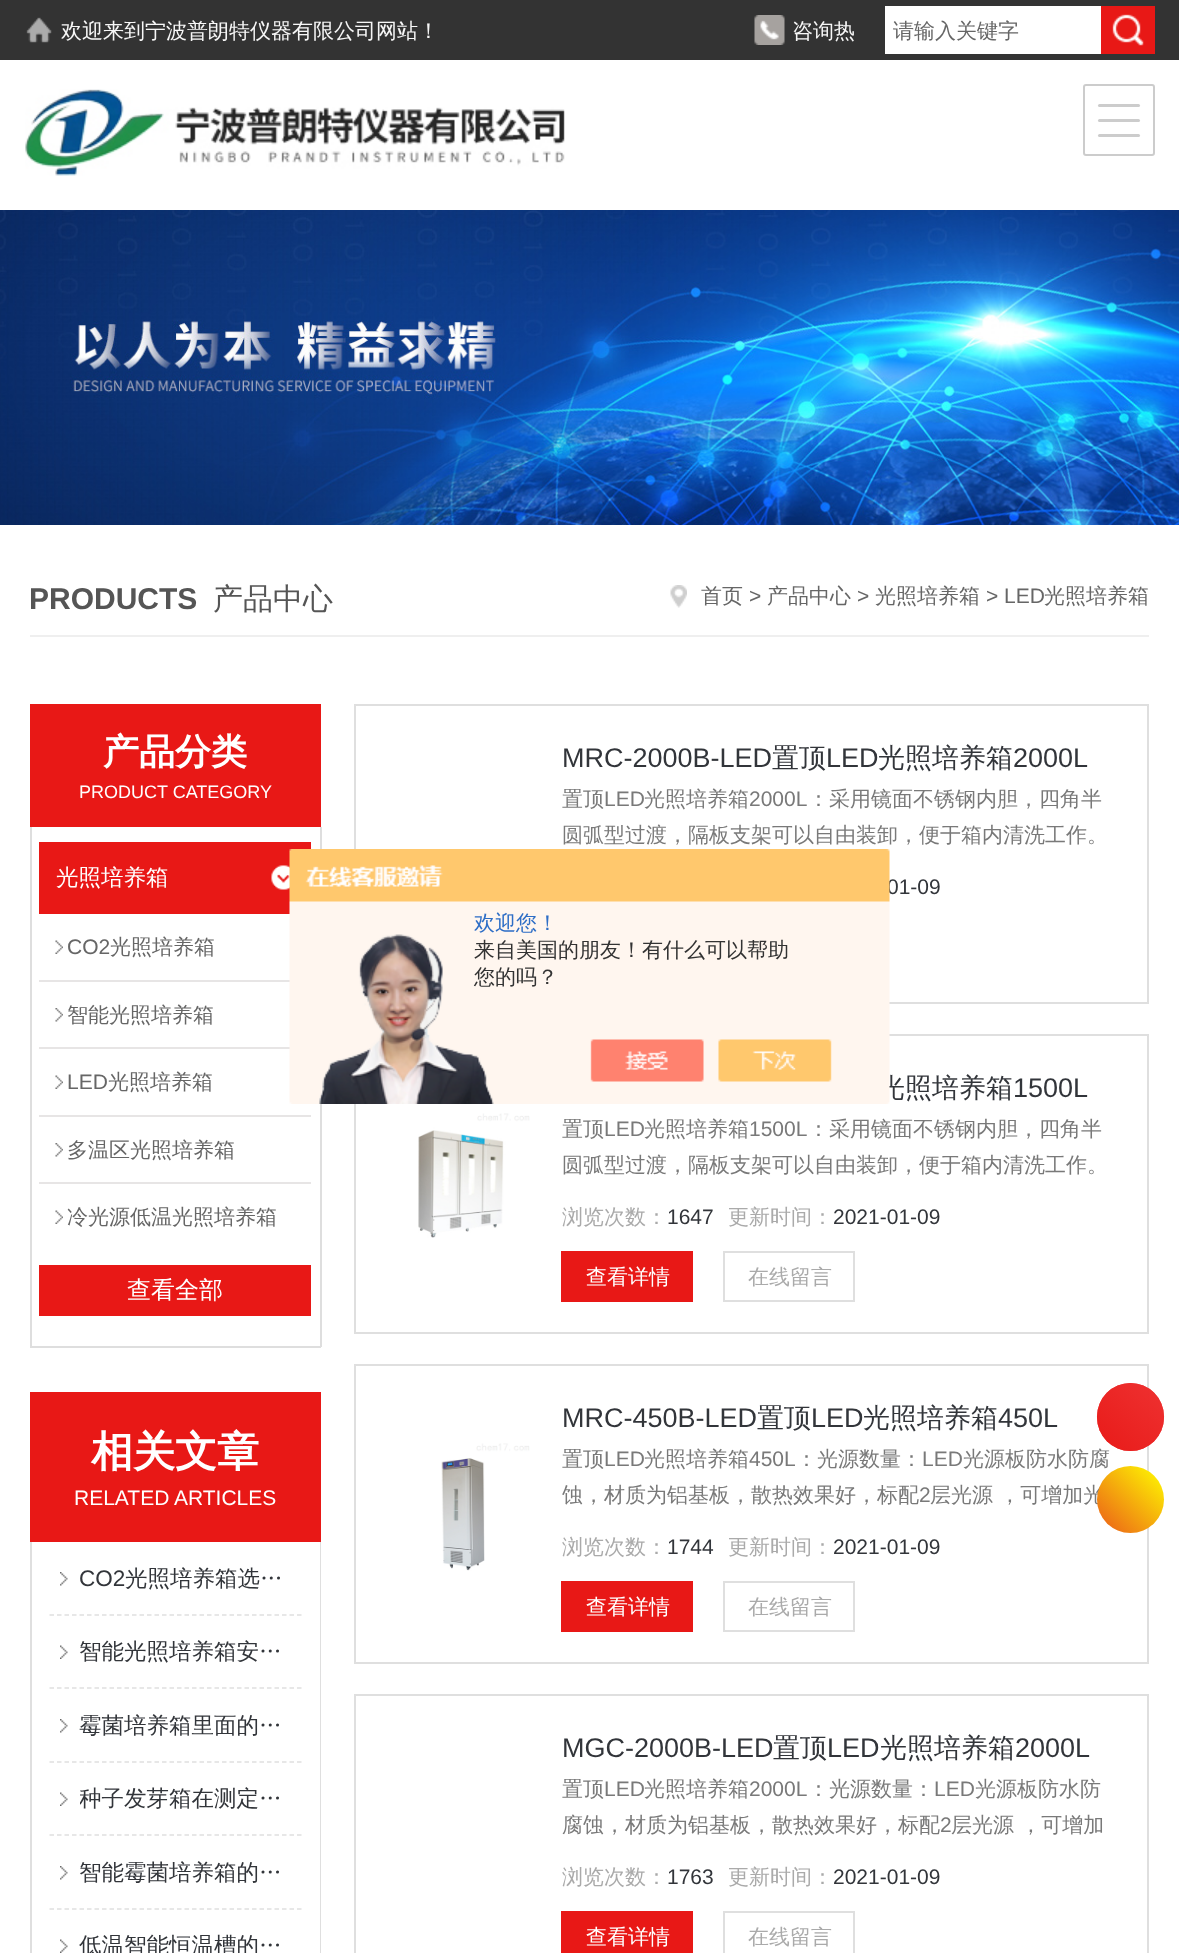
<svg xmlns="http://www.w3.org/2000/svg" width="1179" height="1953">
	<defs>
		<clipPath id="clip1"><rect x="80" y="1763" width="222" height="72" /></clipPath>
		<linearGradient id="g1" gradientUnits="userSpaceOnUse" x1="1097" y1="1451" x2="1164" y2="1383"><stop offset="0" stop-color="#E81816" stop-opacity="0.9" /><stop offset="1" stop-color="#EF3232" stop-opacity="0.9" /></linearGradient>
		<linearGradient id="g2" gradientUnits="userSpaceOnUse" x1="1097" y1="1533" x2="1164" y2="1466"><stop offset="0" stop-color="#EB5B19" /><stop offset="1" stop-color="#FFFF00" /></linearGradient>
	</defs>
	<rect width="100%" height="100%" fill="#FFFFFF" />
	<rect x="0" y="0" width="1179" height="60" fill="#333333" />
	<image x="26" y="17" width="26" height="26" href="assets/img1.png" />
	<text x="61" y="38" font-family="WenQuanYi Zen Hei" font-size="21" font-weight="500" fill="#F7F7F7">欢迎来到宁波普朗特仪器有限公司网站！</text>
	<image x="754" y="15" width="31" height="30" href="assets/img2.png" />
	<text x="792" y="38" font-family="WenQuanYi Zen Hei" font-size="21" font-weight="500" fill="#F7F7F7">咨询热</text>
	<rect x="885" y="6" width="216" height="48" fill="#FFFFFF" />
	<text x="893" y="38" font-family="WenQuanYi Zen Hei" font-size="21" font-weight="500" fill="#666666">请输入关键字</text>
	<rect x="1101" y="6" width="54" height="48" fill="#E81816" />
	<image x="1112" y="14" width="32" height="32" href="assets/img3.png" />
	<image x="25" y="89" width="540" height="87" href="assets/img4.png" />
	<rect x="1084" y="85" width="70" height="70" rx="2" fill="none" stroke="#CCCCCC" stroke-width="2" />
	<rect x="1098" y="104" width="42" height="3" rx="1.5" fill="#CCCCCC" />
	<rect x="1098" y="119" width="42" height="3" rx="1.5" fill="#CCCCCC" />
	<rect x="1098" y="134" width="42" height="3" rx="1.5" fill="#CCCCCC" />
	<image x="0" y="210" width="1179" height="315" href="assets/img5.png" />
	<rect x="30" y="635" width="1119" height="2" fill="#EFEFEF" />
	<text x="29" y="609" font-family="Liberation Sans" font-size="30" font-weight="700" fill="#555555">PRODUCTS</text>
	<text x="213" y="609" font-family="WenQuanYi Zen Hei" font-size="30" font-weight="500" fill="#555555">产品中心</text>
	<image x="670" y="585" width="17" height="23" href="assets/img6.png" />
	<text x="701" y="603" font-family="WenQuanYi Zen Hei" font-size="21" font-weight="500" fill="#666666">首页</text>
	<text x="749" y="603" font-family="Liberation Sans" font-size="21" fill="#666666">&gt;</text>
	<text x="767" y="603" font-family="WenQuanYi Zen Hei" font-size="21" font-weight="500" fill="#666666">产品中心</text>
	<text x="857" y="603" font-family="Liberation Sans" font-size="21" fill="#666666">&gt;</text>
	<text x="875" y="603" font-family="WenQuanYi Zen Hei" font-size="21" font-weight="500" fill="#666666">光照培养箱</text>
	<text x="986" y="603" font-family="Liberation Sans" font-size="21" fill="#666666">&gt; LED</text>
	<text x="1044" y="603" font-family="WenQuanYi Zen Hei" font-size="21" font-weight="500" fill="#666666">光照培养箱</text>
	<rect x="30" y="704" width="291" height="123" fill="#E81816" />
	<text x="103" y="764" font-family="WenQuanYi Zen Hei" font-size="36" font-weight="700" fill="#FFFFFF">产品分类</text>
	<text x="79" y="798" font-family="Liberation Sans" font-size="18" fill="#FFFFFF">PRODUCT CATEGORY</text>
	<rect x="320" y="827" width="2" height="520" fill="#DEDEDE" />
	<rect x="30" y="1346" width="291" height="2" fill="#DEDEDE" />
	<rect x="30" y="827" width="2" height="520" fill="#DEDEDE" />
	<rect x="39" y="842" width="272" height="72" fill="#E81816" />
	<text x="56" y="885" font-family="WenQuanYi Zen Hei" font-size="22.5" font-weight="500" fill="#FFFFFF">光照培养箱</text>
	<image x="271" y="865" width="19" height="25" href="assets/img7.png" />
	<image x="55" y="940" width="8" height="14" href="assets/img8.png" />
	<text x="67" y="954" font-family="Liberation Sans" font-size="21" fill="#666666">CO2</text>
	<text x="110" y="954" font-family="WenQuanYi Zen Hei" font-size="21" font-weight="500" fill="#666666">光照培养箱</text>
	<image x="55" y="1008" width="8" height="14" href="assets/img9.png" />
	<rect x="39" y="980" width="251" height="2" fill="#E7E5E5" />
	<text x="67" y="1022" font-family="WenQuanYi Zen Hei" font-size="21" font-weight="500" fill="#666666">智能光照培养箱</text>
	<image x="55" y="1075" width="8" height="14" href="assets/img8.png" />
	<rect x="39" y="1047" width="251" height="2" fill="#E7E5E5" />
	<text x="67" y="1089" font-family="Liberation Sans" font-size="21" fill="#666666">LED</text>
	<text x="108" y="1089" font-family="WenQuanYi Zen Hei" font-size="21" font-weight="500" fill="#666666">光照培养箱</text>
	<image x="55" y="1143" width="8" height="14" href="assets/img9.png" />
	<rect x="39" y="1115" width="272" height="2" fill="#E7E5E5" />
	<text x="67" y="1157" font-family="WenQuanYi Zen Hei" font-size="21" font-weight="500" fill="#666666">多温区光照培养箱</text>
	<image x="55" y="1210" width="8" height="14" href="assets/img8.png" />
	<rect x="39" y="1182" width="272" height="2" fill="#E7E5E5" />
	<text x="67" y="1224" font-family="WenQuanYi Zen Hei" font-size="21" font-weight="500" fill="#666666">冷光源低温光照培养箱</text>
	<rect x="39" y="1265" width="272" height="51" fill="#E81816" />
	<text x="127" y="1298" font-family="WenQuanYi Zen Hei" font-size="24" font-weight="500" fill="#FFFFFF">查看全部</text>
	<rect x="30" y="1392" width="291" height="150" fill="#E81816" />
	<text x="91" y="1466" font-family="WenQuanYi Zen Hei" font-size="42" font-weight="700" fill="#FFFFFF">相关文章</text>
	<text x="74" y="1505" font-family="Liberation Sans" font-size="21" fill="#FFFFFF">RELATED ARTICLES</text>
	<rect x="320" y="1542" width="1" height="411" fill="#DFDFDF" />
	<rect x="30" y="1542" width="2" height="411" fill="#DFDFDF" />
	<path d="M49.5 1615H301.5" fill="none" stroke="#DFDFDF" stroke-width="1.5" stroke-dasharray="4.5 3" />
	<image x="60" y="1572" width="8" height="14" href="assets/img10.png" />
	<text x="79" y="1586" font-family="Liberation Sans" font-size="22.5" fill="#32353A">CO2</text>
	<text x="125" y="1586" font-family="WenQuanYi Zen Hei" font-size="22.5" font-weight="500" fill="#32353A">光照培养箱选…</text>
	<path d="M49.5 1688H301.5" fill="none" stroke="#DFDFDF" stroke-width="1.5" stroke-dasharray="4.5 3" />
	<image x="60" y="1645" width="8" height="14" href="assets/img11.png" />
	<text x="79" y="1659" font-family="WenQuanYi Zen Hei" font-size="22.5" font-weight="500" fill="#32353A">智能光照培养箱安…</text>
	<path d="M49.5 1762H301.5" fill="none" stroke="#DFDFDF" stroke-width="1.5" stroke-dasharray="4.5 3" />
	<image x="60" y="1719" width="8" height="14" href="assets/img10.png" />
	<text x="79" y="1733" font-family="WenQuanYi Zen Hei" font-size="22.5" font-weight="500" fill="#32353A">霉菌培养箱里面的…</text>
	<path d="M49.5 1835H301.5" fill="none" stroke="#DFDFDF" stroke-width="1.5" stroke-dasharray="4.5 3" />
	<image x="60" y="1792" width="8" height="14" href="assets/img11.png" />
	<g clip-path="url(#clip1)">
		<text x="79" y="1806" font-family="WenQuanYi Zen Hei" font-size="22.5" font-weight="500" fill="#32353A">种子发芽箱在测定…</text>
	</g>
	<path d="M49.5 1909H301.5" fill="none" stroke="#DFDFDF" stroke-width="1.5" stroke-dasharray="4.5 3" />
	<image x="60" y="1866" width="8" height="14" href="assets/img10.png" />
	<text x="79" y="1880" font-family="WenQuanYi Zen Hei" font-size="22.5" font-weight="500" fill="#32353A">智能霉菌培养箱的…</text>
	<image x="60" y="1939" width="8" height="14" href="assets/img11.png" />
	<text x="79" y="1953" font-family="WenQuanYi Zen Hei" font-size="22.5" font-weight="500" fill="#32353A">低温智能恒温槽的…</text>
	<rect x="355" y="705" width="793" height="298" fill="none" stroke="#DFDFDF" stroke-width="2" />
	<text x="562" y="767" font-family="Liberation Sans" font-size="27" fill="#32353A">MRC-2000B-LED</text>
	<text x="772" y="767" font-family="WenQuanYi Zen Hei" font-size="27" font-weight="500" fill="#32353A">置顶</text>
	<text x="826" y="767" font-family="Liberation Sans" font-size="27" fill="#32353A">LED</text>
	<text x="878" y="767" font-family="WenQuanYi Zen Hei" font-size="27" font-weight="500" fill="#32353A">光照培养箱</text>
	<text x="1013" y="767" font-family="Liberation Sans" font-size="27" fill="#32353A">2000L</text>
	<text x="562" y="806" font-family="WenQuanYi Zen Hei" font-size="21" font-weight="500" fill="#797979">置顶</text>
	<text x="604" y="806" font-family="Liberation Sans" font-size="21" fill="#797979">LED</text>
	<text x="644" y="806" font-family="WenQuanYi Zen Hei" font-size="21" font-weight="500" fill="#797979">光照培养箱</text>
	<text x="749" y="806" font-family="Liberation Sans" font-size="21" fill="#797979">2000L</text>
	<g font-family="WenQuanYi Zen Hei" font-size="21" font-weight="500" fill="#797979">
		<text x="808" y="806">：采用镜面不锈钢内胆，四角半</text>
		<text x="562" y="842">圆弧型过渡，隔板支架可以自由装卸，便于箱内清洗工作。</text>
	</g>
	<text x="887" y="894" font-family="Liberation Sans" font-size="21" fill="#32353A">01-09</text>
	<rect x="355" y="1035" width="793" height="298" fill="none" stroke="#DFDFDF" stroke-width="2" />
	<image x="418" y="1113" width="112" height="125" href="assets/img12.png" />
	<text x="878" y="1097" font-family="WenQuanYi Zen Hei" font-size="27" font-weight="500" fill="#32353A">光照培养箱</text>
	<text x="1013" y="1097" font-family="Liberation Sans" font-size="27" fill="#32353A">1500L</text>
	<text x="562" y="1136" font-family="WenQuanYi Zen Hei" font-size="21" font-weight="500" fill="#797979">置顶</text>
	<text x="604" y="1136" font-family="Liberation Sans" font-size="21" fill="#797979">LED</text>
	<text x="644" y="1136" font-family="WenQuanYi Zen Hei" font-size="21" font-weight="500" fill="#797979">光照培养箱</text>
	<text x="749" y="1136" font-family="Liberation Sans" font-size="21" fill="#797979">1500L</text>
	<g font-family="WenQuanYi Zen Hei" font-size="21" font-weight="500" fill="#797979">
		<text x="808" y="1136">：采用镜面不锈钢内胆，四角半</text>
		<text x="562" y="1172">圆弧型过渡，隔板支架可以自由装卸，便于箱内清洗工作。</text>
	</g>
	<text x="562" y="1224" font-family="WenQuanYi Zen Hei" font-size="21" font-weight="500" fill="#AAAAAA">浏览次数：</text>
	<text x="667" y="1224" font-family="Liberation Sans" font-size="21" fill="#32353A">1647</text>
	<text x="728" y="1224" font-family="WenQuanYi Zen Hei" font-size="21" font-weight="500" fill="#AAAAAA">更新时间：</text>
	<text x="833" y="1224" font-family="Liberation Sans" font-size="21" fill="#32353A">2021-01-09</text>
	<rect x="561" y="1251" width="132" height="51" fill="#E81816" />
	<text x="586" y="1284" font-family="WenQuanYi Zen Hei" font-size="21" font-weight="500" fill="#FFFFFF">查看详情</text>
	<rect x="724" y="1252" width="130" height="49" fill="none" stroke="#DFDFDF" stroke-width="2" />
	<text x="748" y="1284" font-family="WenQuanYi Zen Hei" font-size="21" font-weight="500" fill="#AAAAAA">在线留言</text>
	<rect x="355" y="1365" width="793" height="298" fill="none" stroke="#DFDFDF" stroke-width="2" />
	<image x="441" y="1443" width="89" height="128" href="assets/img13.png" />
	<text x="562" y="1427" font-family="Liberation Sans" font-size="27" fill="#32353A">MRC-450B-LED</text>
	<text x="757" y="1427" font-family="WenQuanYi Zen Hei" font-size="27" font-weight="500" fill="#32353A">置顶</text>
	<text x="811" y="1427" font-family="Liberation Sans" font-size="27" fill="#32353A">LED</text>
	<text x="863" y="1427" font-family="WenQuanYi Zen Hei" font-size="27" font-weight="500" fill="#32353A">光照培养箱</text>
	<text x="998" y="1427" font-family="Liberation Sans" font-size="27" fill="#32353A">450L</text>
	<text x="562" y="1466" font-family="WenQuanYi Zen Hei" font-size="21" font-weight="500" fill="#797979">置顶</text>
	<text x="604" y="1466" font-family="Liberation Sans" font-size="21" fill="#797979">LED</text>
	<text x="644" y="1466" font-family="WenQuanYi Zen Hei" font-size="21" font-weight="500" fill="#797979">光照培养箱</text>
	<text x="749" y="1466" font-family="Liberation Sans" font-size="21" fill="#797979">450L</text>
	<text x="796" y="1466" font-family="WenQuanYi Zen Hei" font-size="21" font-weight="500" fill="#797979">：光源数量：</text>
	<text x="922" y="1466" font-family="Liberation Sans" font-size="21" fill="#797979">LED</text>
	<g font-family="WenQuanYi Zen Hei" font-size="21" font-weight="500" fill="#797979">
		<text x="963" y="1466">光源板防水防腐</text>
		<text x="562" y="1502">蚀，材质为铝基板，散热效果好，标配</text>
	</g>
	<text x="919" y="1502" font-family="Liberation Sans" font-size="21" fill="#797979">2</text>
	<text x="930" y="1502" font-family="WenQuanYi Zen Hei" font-size="21" font-weight="500" fill="#797979">层光源 ，可增加光</text>
	<text x="562" y="1554" font-family="WenQuanYi Zen Hei" font-size="21" font-weight="500" fill="#AAAAAA">浏览次数：</text>
	<text x="667" y="1554" font-family="Liberation Sans" font-size="21" fill="#32353A">1744</text>
	<text x="728" y="1554" font-family="WenQuanYi Zen Hei" font-size="21" font-weight="500" fill="#AAAAAA">更新时间：</text>
	<text x="833" y="1554" font-family="Liberation Sans" font-size="21" fill="#32353A">2021-01-09</text>
	<rect x="561" y="1581" width="132" height="51" fill="#E81816" />
	<text x="586" y="1614" font-family="WenQuanYi Zen Hei" font-size="21" font-weight="500" fill="#FFFFFF">查看详情</text>
	<rect x="724" y="1582" width="130" height="49" fill="none" stroke="#DFDFDF" stroke-width="2" />
	<text x="748" y="1614" font-family="WenQuanYi Zen Hei" font-size="21" font-weight="500" fill="#AAAAAA">在线留言</text>
	<rect x="355" y="1695" width="793" height="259" fill="none" stroke="#DFDFDF" stroke-width="2" />
	<text x="562" y="1757" font-family="Liberation Sans" font-size="27" fill="#32353A">MGC-2000B-LED</text>
	<text x="773" y="1757" font-family="WenQuanYi Zen Hei" font-size="27" font-weight="500" fill="#32353A">置顶</text>
	<text x="827" y="1757" font-family="Liberation Sans" font-size="27" fill="#32353A">LED</text>
	<text x="880" y="1757" font-family="WenQuanYi Zen Hei" font-size="27" font-weight="500" fill="#32353A">光照培养箱</text>
	<text x="1015" y="1757" font-family="Liberation Sans" font-size="27" fill="#32353A">2000L</text>
	<text x="562" y="1796" font-family="WenQuanYi Zen Hei" font-size="21" font-weight="500" fill="#797979">置顶</text>
	<text x="604" y="1796" font-family="Liberation Sans" font-size="21" fill="#797979">LED</text>
	<text x="644" y="1796" font-family="WenQuanYi Zen Hei" font-size="21" font-weight="500" fill="#797979">光照培养箱</text>
	<text x="749" y="1796" font-family="Liberation Sans" font-size="21" fill="#797979">2000L</text>
	<text x="808" y="1796" font-family="WenQuanYi Zen Hei" font-size="21" font-weight="500" fill="#797979">：光源数量：</text>
	<text x="934" y="1796" font-family="Liberation Sans" font-size="21" fill="#797979">LED</text>
	<g font-family="WenQuanYi Zen Hei" font-size="21" font-weight="500" fill="#797979">
		<text x="975" y="1796">光源板防水防</text>
		<text x="562" y="1832">腐蚀，材质为铝基板，散热效果好，标配</text>
	</g>
	<text x="940" y="1832" font-family="Liberation Sans" font-size="21" fill="#797979">2</text>
	<text x="951" y="1832" font-family="WenQuanYi Zen Hei" font-size="21" font-weight="500" fill="#797979">层光源 ，可增加</text>
	<text x="562" y="1884" font-family="WenQuanYi Zen Hei" font-size="21" font-weight="500" fill="#AAAAAA">浏览次数：</text>
	<text x="667" y="1884" font-family="Liberation Sans" font-size="21" fill="#32353A">1763</text>
	<text x="728" y="1884" font-family="WenQuanYi Zen Hei" font-size="21" font-weight="500" fill="#AAAAAA">更新时间：</text>
	<text x="833" y="1884" font-family="Liberation Sans" font-size="21" fill="#32353A">2021-01-09</text>
	<rect x="561" y="1911" width="132" height="42" fill="#E81816" />
	<text x="586" y="1944" font-family="WenQuanYi Zen Hei" font-size="21" font-weight="500" fill="#FFFFFF">查看详情</text>
	<rect x="724" y="1912" width="130" height="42" fill="none" stroke="#DFDFDF" stroke-width="2" />
	<text x="748" y="1944" font-family="WenQuanYi Zen Hei" font-size="21" font-weight="500" fill="#AAAAAA">在线留言</text>
	<image x="289" y="849" width="601" height="255" href="assets/img14.png" />
	<text x="474" y="930" font-family="WenQuanYi Zen Hei" font-size="21" font-weight="500" fill="#2E6EC6">欢迎您！</text>
	<g font-family="WenQuanYi Zen Hei" font-size="21" font-weight="500" fill="#333333">
		<text x="474" y="957">来自美国的朋友！有什么可以帮助</text>
		<text x="474" y="984">您的吗？</text>
	</g>
	<rect x="1097" y="1383" width="67" height="68" rx="33.5" fill="#E81816" fill-opacity="0.9" />
	<rect x="1097" y="1383" width="67" height="68" rx="33.5" fill="url(#g1)" />
	<circle cx="1130.5" cy="1499.5" r="33.5" fill="url(#g2)" />
</svg>
